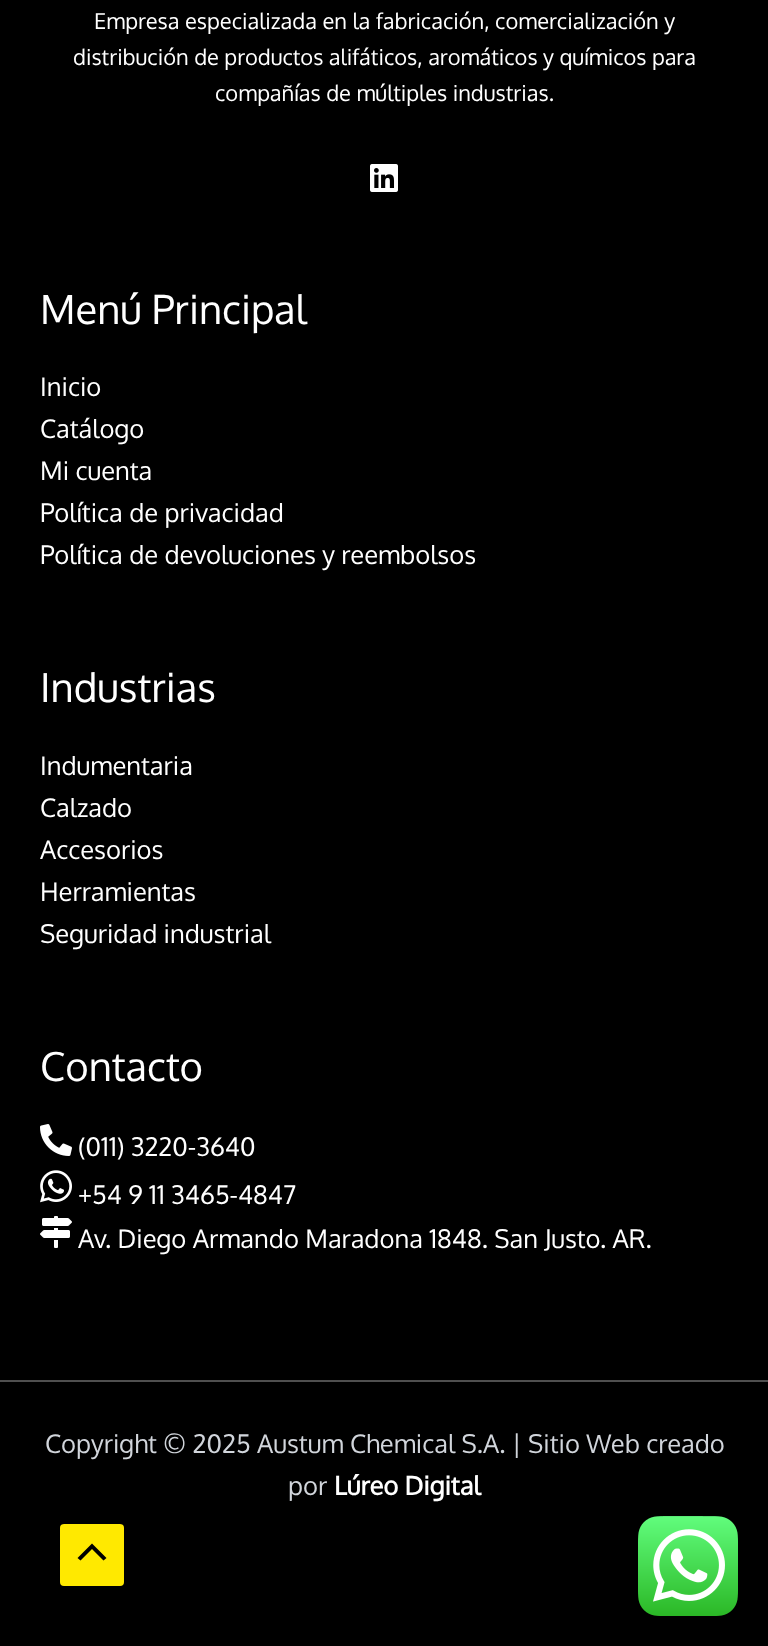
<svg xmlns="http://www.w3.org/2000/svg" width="768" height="1646">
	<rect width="100%" height="100%" fill="#000000" />
	<g font-family="Oxygen" font-size="21.9" fill="#FFFFFF">
		<text x="94" y="29">Empresa especializada en la fabricación, comercialización y</text>
		<text x="73" y="65">distribución de productos alifáticos, aromáticos y químicos para</text>
		<text x="215" y="101">compañías de múltiples industrias.</text>
	</g>
	<image x="370" y="164" width="28" height="28" href="assets/img1.png" />
	<text x="40" y="324" font-family="Oxygen" font-size="40" fill="#FFFFFF">Menú Principal</text>
	<g font-family="Oxygen" font-size="25.55" fill="#FFFFFF">
		<text x="40" y="396">Inicio</text>
		<text x="40" y="438">Catálogo</text>
		<text x="40" y="480">Mi cuenta</text>
		<text x="40" y="522">Política de privacidad</text>
		<text x="40" y="564">Política de devoluciones y reembolsos</text>
	</g>
	<text x="40" y="702" font-family="Oxygen" font-size="40" fill="#FFFFFF">Industrias</text>
	<g font-family="Oxygen" font-size="25.55" fill="#FFFFFF">
		<text x="40" y="775">Indumentaria</text>
		<text x="40" y="817">Calzado</text>
		<text x="40" y="859">Accesorios</text>
		<text x="40" y="901">Herramientas</text>
		<text x="40" y="943">Seguridad industrial</text>
	</g>
	<text x="40" y="1081" font-family="Oxygen" font-size="40" fill="#FFFFFF">Contacto</text>
	<image x="40" y="1124" width="32" height="32" href="assets/img2.png" />
	<text x="78" y="1156" font-family="Oxygen" font-size="25.55" fill="#FFFFFF">(011) 3220-3640</text>
	<image x="40" y="1170" width="32" height="33" href="assets/img3.png" />
	<text x="78" y="1204" font-family="Oxygen" font-size="25.55" fill="#FFFFFF">+54 9 11 3465-4847</text>
	<image x="40" y="1216" width="32" height="32" href="assets/img4.png" />
	<text x="78" y="1248" font-family="Oxygen" font-size="25.55" fill="#FFFFFF">Av. Diego Armando Maradona 1848. San Justo. AR.</text>
	<rect x="0" y="1380" width="768" height="2" fill="#4F4F4F" />
	<g font-family="Oxygen" font-size="25.55" fill="#D1D5DB">
		<text x="45" y="1453">Copyright © 2025 Austum Chemical S.A. | Sitio Web creado</text>
		<text x="288" y="1495">por</text>
	</g>
	<text x="334" y="1495" font-family="Oxygen" font-size="25.55" font-weight="700" fill="#FFFFFF">Lúreo Digital</text>
	<rect x="60" y="1524" width="64" height="62" rx="4" fill="#FFE900" />
	<path d="M106.5 1558L92 1543.5L77.5 1558L80.5 1560.5L92 1549L103.5 1560.5Z" fill="#000000" />
	<image x="638" y="1516" width="100" height="100" href="assets/img5.png" />
</svg>
